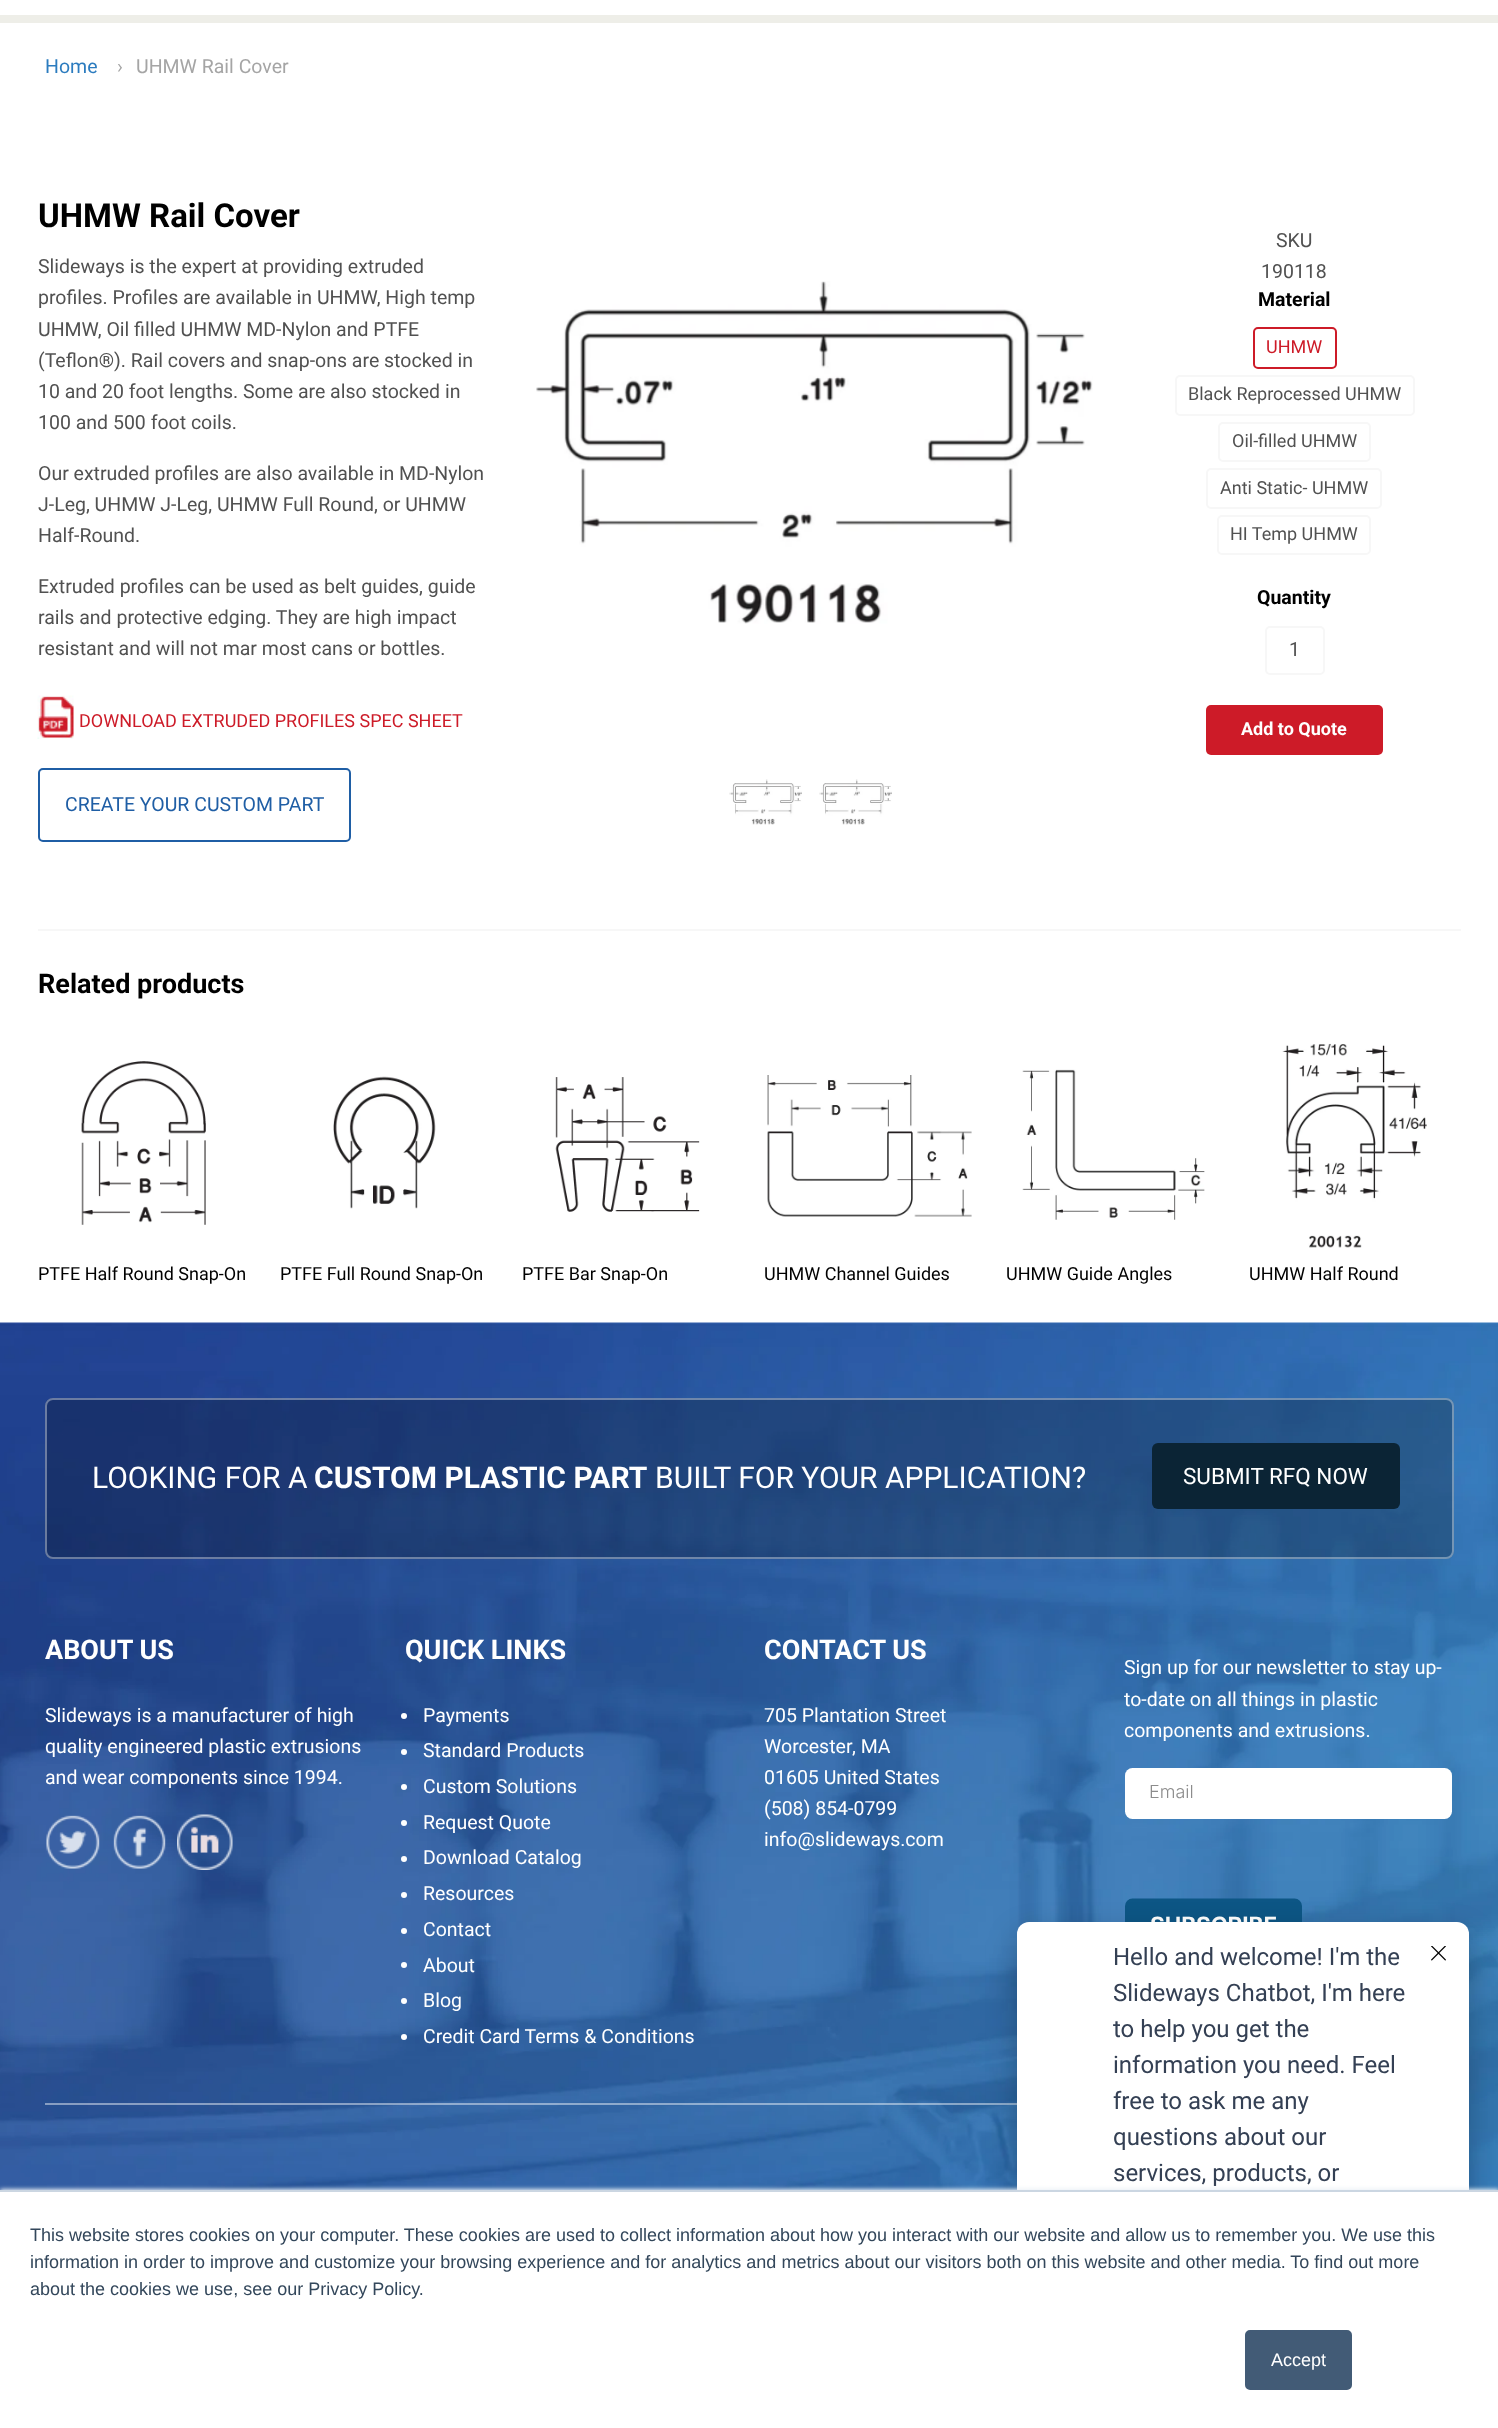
<svg xmlns="http://www.w3.org/2000/svg" width="1498" height="2428">
	<rect width="100%" height="100%" fill="#FFFFFF" />
	<rect x="0" y="15" width="1498" height="8" fill="#EEEEE8" />
	<text x="45" y="73" font-family="Roboto" font-size="19.5" fill="#2C7CBF">Home</text>
	<g font-family="Roboto" font-size="19.5" fill="#A5A5A5">
		<text x="117" y="73">›</text>
		<text x="136" y="73">UHMW Rail Cover</text>
	</g>
	<text x="38" y="227" font-family="Roboto" font-size="33" font-weight="700" fill="#000000">UHMW Rail Cover</text>
	<g font-family="Roboto" font-size="19.5" fill="#515151">
		<text x="38" y="273">Slideways is the expert at providing extruded</text>
		<text x="38" y="304">profiles. Profiles are available in UHMW, High temp</text>
		<text x="38" y="336">UHMW, Oil filled UHMW MD-Nylon and PTFE</text>
		<text x="38" y="367">(Teflon®). Rail covers and snap-ons are stocked in</text>
		<text x="38" y="398">10 and 20 foot lengths. Some are also stocked in</text>
		<text x="38" y="429">100 and 500 foot coils.</text>
		<text x="38" y="480">Our extruded profiles are also available in MD-Nylon</text>
		<text x="38" y="511">J-Leg, UHMW J-Leg, UHMW Full Round, or UHMW</text>
		<text x="38" y="542">Half-Round.</text>
		<text x="38" y="593">Extruded profiles can be used as belt guides, guide</text>
		<text x="38" y="624">rails and protective edging. They are high impact</text>
		<text x="38" y="655">resistant and will not mar most cans or bottles.</text>
	</g>
	<image x="37" y="695" width="37" height="44" href="assets/img1.png" />
	<text x="79" y="727" font-family="Roboto" font-size="18" fill="#CD1B28">DOWNLOAD EXTRUDED PROFILES SPEC SHEET</text>
	<rect x="39" y="769" width="311" height="72" rx="4" fill="none" stroke="#1F5EA5" stroke-width="2" />
	<text x="65" y="811" font-family="Roboto" font-size="19.5" fill="#1F5EA5">CREATE YOUR CUSTOM PART</text>
	<image x="536" y="281" width="557" height="343" href="assets/img2.png" />
	<image x="729" y="779" width="73" height="46" href="assets/img3.png" />
	<image x="819" y="779" width="73" height="46" href="assets/img3.png" />
	<g font-family="Roboto" font-size="19.5" fill="#515151">
		<text x="1276" y="247">SKU</text>
		<text x="1261" y="278">190118</text>
	</g>
	<text x="1258" y="306" font-family="Roboto" font-size="19.5" font-weight="700" fill="#000000">Material</text>
	<rect x="1254" y="328" width="82" height="40" rx="4" fill="none" stroke="#CD1B28" stroke-width="2" />
	<text x="1266" y="353" font-family="Roboto" font-size="18" fill="#CD1B28">UHMW</text>
	<rect x="1176" y="376" width="238" height="39" rx="4" fill="none" stroke="#F7F7F7" stroke-width="2" />
	<text x="1188" y="400" font-family="Roboto" font-size="18" fill="#515151">Black Reprocessed UHMW</text>
	<rect x="1219" y="423" width="151" height="38" rx="4" fill="none" stroke="#F7F7F7" stroke-width="2" />
	<text x="1232" y="447" font-family="Roboto" font-size="18" fill="#515151">Oil-filled UHMW</text>
	<rect x="1207" y="469" width="174" height="39" rx="4" fill="none" stroke="#F7F7F7" stroke-width="2" />
	<text x="1220" y="494" font-family="Roboto" font-size="18" fill="#515151">Anti Static- UHMW</text>
	<rect x="1218" y="516" width="152" height="38" rx="4" fill="none" stroke="#F7F7F7" stroke-width="2" />
	<text x="1230" y="540" font-family="Roboto" font-size="18" fill="#515151">HI Temp UHMW</text>
	<text x="1257" y="604" font-family="Roboto" font-size="19.5" font-weight="700" fill="#000000">Quantity</text>
	<rect x="1266" y="627" width="58" height="47" rx="4" fill="none" stroke="#F7F7F7" stroke-width="2" />
	<text x="1289" y="656" font-family="Roboto" font-size="19.5" fill="#515151">1</text>
	<rect x="1206" y="705" width="177" height="50" rx="5" fill="#CD1B28" />
	<text x="1241" y="735" font-family="Roboto" font-size="18" font-weight="700" fill="#FFFFFF">Add to Quote</text>
	<rect x="38" y="929" width="1423" height="2" fill="#F7F7F7" />
	<text x="38" y="993" font-family="Roboto" font-size="27" font-weight="700" fill="#000000">Related products</text>
	<image x="81" y="1061" width="125" height="164" href="assets/img4.png" />
	<text x="38" y="1280" font-family="Roboto" font-size="18" fill="#000000">PTFE Half Round Snap-On</text>
	<image x="333" y="1076" width="103" height="133" href="assets/img5.png" />
	<text x="280" y="1280" font-family="Roboto" font-size="18" fill="#000000">PTFE Full Round Snap-On</text>
	<image x="555" y="1077" width="145" height="135" href="assets/img6.png" />
	<text x="522" y="1280" font-family="Roboto" font-size="18" fill="#000000">PTFE Bar Snap-On</text>
	<image x="767" y="1075" width="205" height="142" href="assets/img7.png" />
	<text x="764" y="1280" font-family="Roboto" font-size="18" fill="#000000">UHMW Channel Guides</text>
	<image x="1022" y="1069" width="183" height="151" href="assets/img8.png" />
	<text x="1006" y="1280" font-family="Roboto" font-size="18" fill="#000000">UHMW Guide Angles</text>
	<image x="1282" y="1043" width="145" height="205" href="assets/img9.png" />
	<text x="1249" y="1280" font-family="Roboto" font-size="18" fill="#000000">UHMW Half Round</text>
	<image x="0" y="1322" width="1498" height="868" href="assets/img10.png" />
	<rect x="45" y="1398" width="1409" height="161" rx="8" fill="#000000" fill-opacity="0.23" />
	<rect x="46" y="1399" width="1407" height="159" rx="7" fill="none" stroke="#FFFFFF" stroke-opacity="0.36" stroke-width="2" />
	<text x="92" y="1488" font-family="Roboto" font-size="30" fill="#FFFFFF">LOOKING FOR A</text>
	<text x="314" y="1488" font-family="Roboto" font-size="30" font-weight="700" fill="#FFFFFF">CUSTOM PLASTIC PART</text>
	<text x="655" y="1488" font-family="Roboto" font-size="30" fill="#FFFFFF">BUILT FOR YOUR APPLICATION?</text>
	<rect x="1152" y="1443" width="248" height="66" rx="6" fill="#0B2435" />
	<text x="1183" y="1484" font-family="Roboto" font-size="22.5" fill="#FFFFFF">SUBMIT RFQ NOW</text>
	<text x="45" y="1659" font-family="Roboto" font-size="27" font-weight="700" fill="#FFFFFF">ABOUT US</text>
	<g font-family="Roboto" font-size="19.5" fill="#FFFFFF">
		<text x="45" y="1722">Slideways is a manufacturer of high</text>
		<text x="45" y="1753">quality engineered plastic extrusions</text>
		<text x="45" y="1784">and wear components since 1994.</text>
	</g>
	<image x="46" y="1815" width="54" height="54" href="assets/img11.png" />
	<image x="113" y="1815" width="53" height="54" href="assets/img12.png" />
	<image x="177" y="1814" width="56" height="56" href="assets/img13.png" />
	<text x="405" y="1659" font-family="Roboto" font-size="27" font-weight="700" fill="#FFFFFF">QUICK LINKS</text>
	<circle cx="404" cy="1716" r="3" fill="#FFFFFF" />
	<text x="423" y="1722" font-family="Roboto" font-size="19.5" fill="#FFFFFF">Payments</text>
	<circle cx="404" cy="1752" r="3" fill="#FFFFFF" />
	<text x="423" y="1757" font-family="Roboto" font-size="19.5" fill="#FFFFFF">Standard Products</text>
	<circle cx="404" cy="1787" r="3" fill="#FFFFFF" />
	<text x="423" y="1793" font-family="Roboto" font-size="19.5" fill="#FFFFFF">Custom Solutions</text>
	<circle cx="404" cy="1823" r="3" fill="#FFFFFF" />
	<text x="423" y="1829" font-family="Roboto" font-size="19.5" fill="#FFFFFF">Request Quote</text>
	<circle cx="404" cy="1859" r="3" fill="#FFFFFF" />
	<text x="423" y="1864" font-family="Roboto" font-size="19.5" fill="#FFFFFF">Download Catalog</text>
	<circle cx="404" cy="1895" r="3" fill="#FFFFFF" />
	<text x="423" y="1900" font-family="Roboto" font-size="19.5" fill="#FFFFFF">Resources</text>
	<circle cx="404" cy="1931" r="3" fill="#FFFFFF" />
	<text x="423" y="1936" font-family="Roboto" font-size="19.5" fill="#FFFFFF">Contact</text>
	<circle cx="404" cy="1965" r="3" fill="#FFFFFF" />
	<text x="423" y="1972" font-family="Roboto" font-size="19.5" fill="#FFFFFF">About</text>
	<circle cx="404" cy="2001" r="3" fill="#FFFFFF" />
	<text x="423" y="2007" font-family="Roboto" font-size="19.5" fill="#FFFFFF">Blog</text>
	<circle cx="404" cy="2037" r="3" fill="#FFFFFF" />
	<text x="423" y="2043" font-family="Roboto" font-size="19.5" fill="#FFFFFF">Credit Card Terms &amp; Conditions</text>
	<text x="764" y="1659" font-family="Roboto" font-size="27" font-weight="700" fill="#FFFFFF">CONTACT US</text>
	<g font-family="Roboto" font-size="19.5" fill="#FFFFFF">
		<text x="764" y="1722">705 Plantation Street</text>
		<text x="764" y="1753">Worcester</text>
		<text x="852" y="1753">, MA</text>
		<text x="764" y="1784">01605 United States</text>
		<text x="764" y="1815">(508) 854-0799</text>
		<text x="764" y="1846">info@slideways.com</text>
		<text x="1124" y="1674">Sign up for our newsletter to stay up-</text>
		<text x="1124" y="1706">to-date on all things in plastic</text>
		<text x="1124" y="1737">components and extrusions.</text>
	</g>
	<image x="1125" y="1768" width="327" height="154" href="assets/img14.png" />
	<rect x="45" y="2103" width="972" height="2" fill="#FFFFFF" fill-opacity="0.45" />
	<rect x="1017" y="1934" width="452" height="360" rx="12" fill="#000000" fill-opacity="0.24" filter="blur(15px)" />
	<rect x="1017" y="1922" width="452" height="360" rx="12" fill="#FFFFFF" />
	<g font-family="Roboto" font-size="24" fill="#344054">
		<text x="1113" y="1965">Hello and welcome! I'm the</text>
		<text x="1113" y="2001">Slideways Chatbot, I'm here</text>
		<text x="1113" y="2037">to help you get the</text>
		<text x="1113" y="2073">information you need. Feel</text>
		<text x="1113" y="2109">free to ask me any</text>
		<text x="1113" y="2145">questions about our</text>
		<text x="1113" y="2181">services, products, or</text>
	</g>
	<image x="1431" y="1946" width="15" height="15" href="assets/img15.png" />
	<rect x="0" y="2189" width="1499" height="238" fill="#EAF0F6" filter="blur(2px)" />
	<rect x="0" y="2192" width="1498" height="236" fill="#FFFFFF" />
	<rect x="0" y="2190" width="1498" height="2" fill="#CBD6E2" />
	<g font-family="Liberation Sans" font-size="18" fill="#33475B">
		<text x="30" y="2241">This website stores cookies on your computer. These cookies are used to collect information about how you interact with our website and allow us to remember you. We use this</text>
		<text x="30" y="2268">information in order to improve and customize your browsing experience and for analytics and metrics about our visitors both on this website and other media. To find out more</text>
		<text x="30" y="2295">about the cookies we use, see our Privacy Policy.</text>
	</g>
	<rect x="1246" y="2331" width="105" height="58" rx="4" fill="#425B76" stroke="#425B76" stroke-width="2" />
	<text x="1271" y="2366" font-family="Liberation Sans" font-size="18" fill="#FFFFFF">Accept</text>
</svg>
